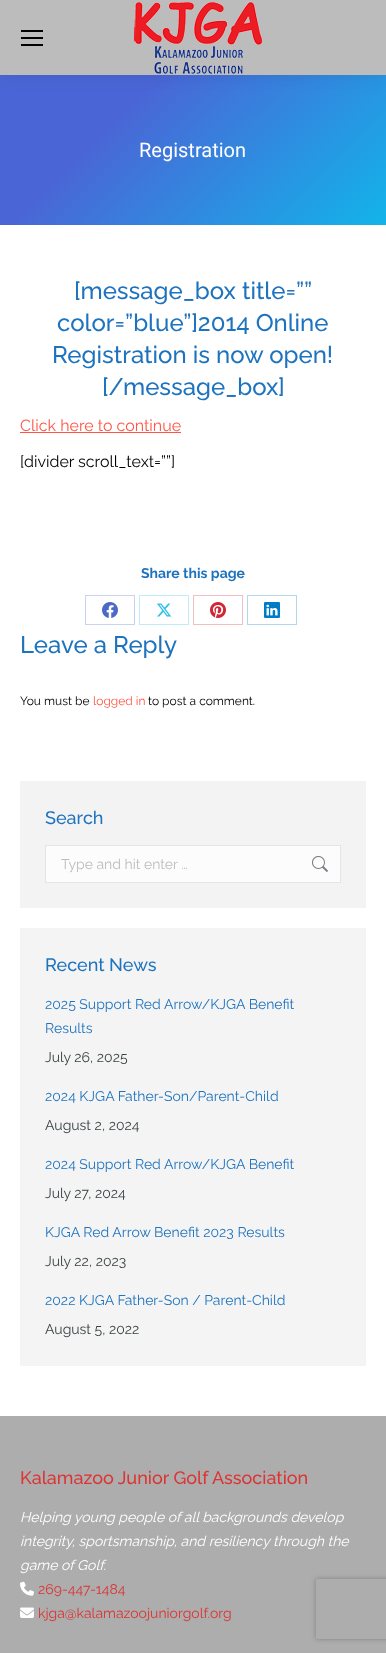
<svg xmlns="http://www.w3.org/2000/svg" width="386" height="1653">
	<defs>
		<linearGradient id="g1" gradientUnits="userSpaceOnUse" x1="59" y1="16" x2="327" y2="284"><stop offset="0.3" stop-color="#4A66D6" /><stop offset="1" stop-color="#12B4EA" /></linearGradient>
		<clipPath id="clip1"><path d="M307 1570H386V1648H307ZM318 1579H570C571 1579 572 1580 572 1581V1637C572 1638 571 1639 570 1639H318C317 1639 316 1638 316 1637V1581C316 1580 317 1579 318 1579Z" clip-rule="evenodd" /></clipPath>
	</defs>
	<rect width="100%" height="100%" fill="#FFFFFF" />
	<rect x="0" y="75" width="386" height="150" fill="url(#g1)" />
	<rect x="-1" y="-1" width="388" height="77" fill="#000000" fill-opacity="0.07" filter="blur(7.5px)" />
	<rect x="0" y="0" width="386" height="75" fill="#BCBCBC" />
	<rect x="21" y="30" width="22" height="2" fill="#000000" />
	<rect x="21" y="37" width="22" height="2" fill="#000000" />
	<rect x="21" y="44" width="22" height="2" fill="#000000" />
	<image x="134" y="1" width="128" height="73" href="assets/img1.png" />
	<text x="139" y="157" font-family="Roboto" font-size="20" fill="#FFFFFF">Registration</text>
	<g font-family="Raleway" font-size="24" font-weight="500" fill="#1E73BE">
		<text x="74" y="299">[message_box title=””</text>
		<text x="57" y="331">color=”blue”]2014 Online</text>
		<text x="52" y="363">Registration is now open!</text>
		<text x="102" y="395">[/message_box]</text>
	</g>
	<text x="20" y="431" font-family="Raleway" font-size="16" fill="#FF5544">Click here to continue</text>
	<rect x="20" y="432" width="161" height="1" fill="#FF5544" />
	<text x="20" y="467" font-family="Raleway" font-size="16" fill="#000000">[divider scroll_text=””]</text>
	<text x="141" y="578" font-family="Raleway" font-size="14" font-weight="700" fill="#1E73BE">Share this page</text>
	<rect x="85.5" y="595.5" width="49" height="29" fill="none" stroke="#C9D2EE" />
	<image x="102" y="602" width="16" height="16" href="assets/img2.png" />
	<rect x="139.5" y="595.5" width="49" height="29" fill="none" stroke="#BFECF9" />
	<image x="157" y="603" width="15" height="14" href="assets/img3.png" />
	<rect x="193.5" y="595.5" width="49" height="29" fill="none" stroke="#F1BFC2" />
	<image x="210" y="602" width="16" height="16" href="assets/img4.png" />
	<rect x="247.5" y="595.5" width="49" height="29" fill="none" stroke="#B3D7EE" />
	<image x="264" y="602" width="16" height="16" href="assets/img5.png" />
	<text x="20" y="653" font-family="Raleway" font-size="24" font-weight="500" fill="#1E73BE">Leave a Reply</text>
	<text x="20" y="705" font-family="Raleway" font-size="12" fill="#000000">You must be</text>
	<text x="93" y="705" font-family="Raleway" font-size="12" fill="#FF5544">logged in</text>
	<text x="148" y="705" font-family="Raleway" font-size="12" fill="#000000">to post a comment.</text>
	<rect x="20" y="781" width="346" height="127" fill="#F3F3F3" />
	<text x="45" y="824" font-family="Raleway" font-size="18" font-weight="500" fill="#1E73BE">Search</text>
	<rect x="45.5" y="845.5" width="295" height="37" fill="#FCFCFC" stroke="#E4E5E7" />
	<text x="61" y="869" font-family="Raleway" font-size="14" fill="#BABDC1">Type and hit enter …</text>
	<image x="312" y="856" width="16" height="16" href="assets/img6.png" />
	<rect x="20" y="928" width="346" height="438" fill="#F4F4F4" />
	<text x="45" y="971" font-family="Raleway" font-size="18" font-weight="500" fill="#1E73BE">Recent News</text>
	<g font-family="Raleway" font-size="14" fill="#1E73BE">
		<text x="45" y="1009">2025 Support Red Arrow/KJGA Benefit</text>
		<text x="45" y="1033">Results</text>
	</g>
	<text x="45" y="1062" font-family="Raleway" font-size="14" fill="#394244">July 26, 2025</text>
	<text x="45" y="1101" font-family="Raleway" font-size="14" fill="#1E73BE">2024 KJGA Father-Son/Parent-Child</text>
	<text x="45" y="1130" font-family="Raleway" font-size="14" fill="#394244">August 2, 2024</text>
	<text x="45" y="1169" font-family="Raleway" font-size="14" fill="#1E73BE">2024 Support Red Arrow/KJGA Benefit</text>
	<text x="45" y="1198" font-family="Raleway" font-size="14" fill="#394244">July 27, 2024</text>
	<text x="45" y="1237" font-family="Raleway" font-size="14" fill="#1E73BE">KJGA Red Arrow Benefit 2023 Results</text>
	<text x="45" y="1266" font-family="Raleway" font-size="14" fill="#394244">July 22, 2023</text>
	<text x="45" y="1305" font-family="Raleway" font-size="14" fill="#1E73BE">2022 KJGA Father-Son / Parent-Child</text>
	<text x="45" y="1334" font-family="Raleway" font-size="14" fill="#394244">August 5, 2022</text>
	<rect x="0" y="1416" width="386" height="237" fill="#ADADAD" />
	<text x="20" y="1484" font-family="Raleway" font-size="18" font-weight="500" fill="#DD3333">Kalamazoo Junior Golf Association</text>
	<g font-family="Raleway" font-size="14" font-style="italic" fill="#FFFFFF">
		<text x="20" y="1522">Helping young people of all backgrounds develop</text>
		<text x="20" y="1546">integrity, sportsmanship, and resiliency through the</text>
		<text x="20" y="1570">game of Golf.</text>
	</g>
	<image x="20" y="1581" width="14" height="15" href="assets/img7.png" />
	<text x="38" y="1594" font-family="Raleway" font-size="14" fill="#DD3333">269-447-1484</text>
	<image x="20" y="1607" width="14" height="11" href="assets/img8.png" />
	<text x="38" y="1618" font-family="Raleway" font-size="14" fill="#DD3333">kjga@kalamazoojuniorgolf.org</text>
	<g clip-path="url(#clip1)">
		<rect x="316" y="1579" width="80" height="60" rx="2" fill="#808080" filter="blur(2.5px)" />
	</g>
</svg>
